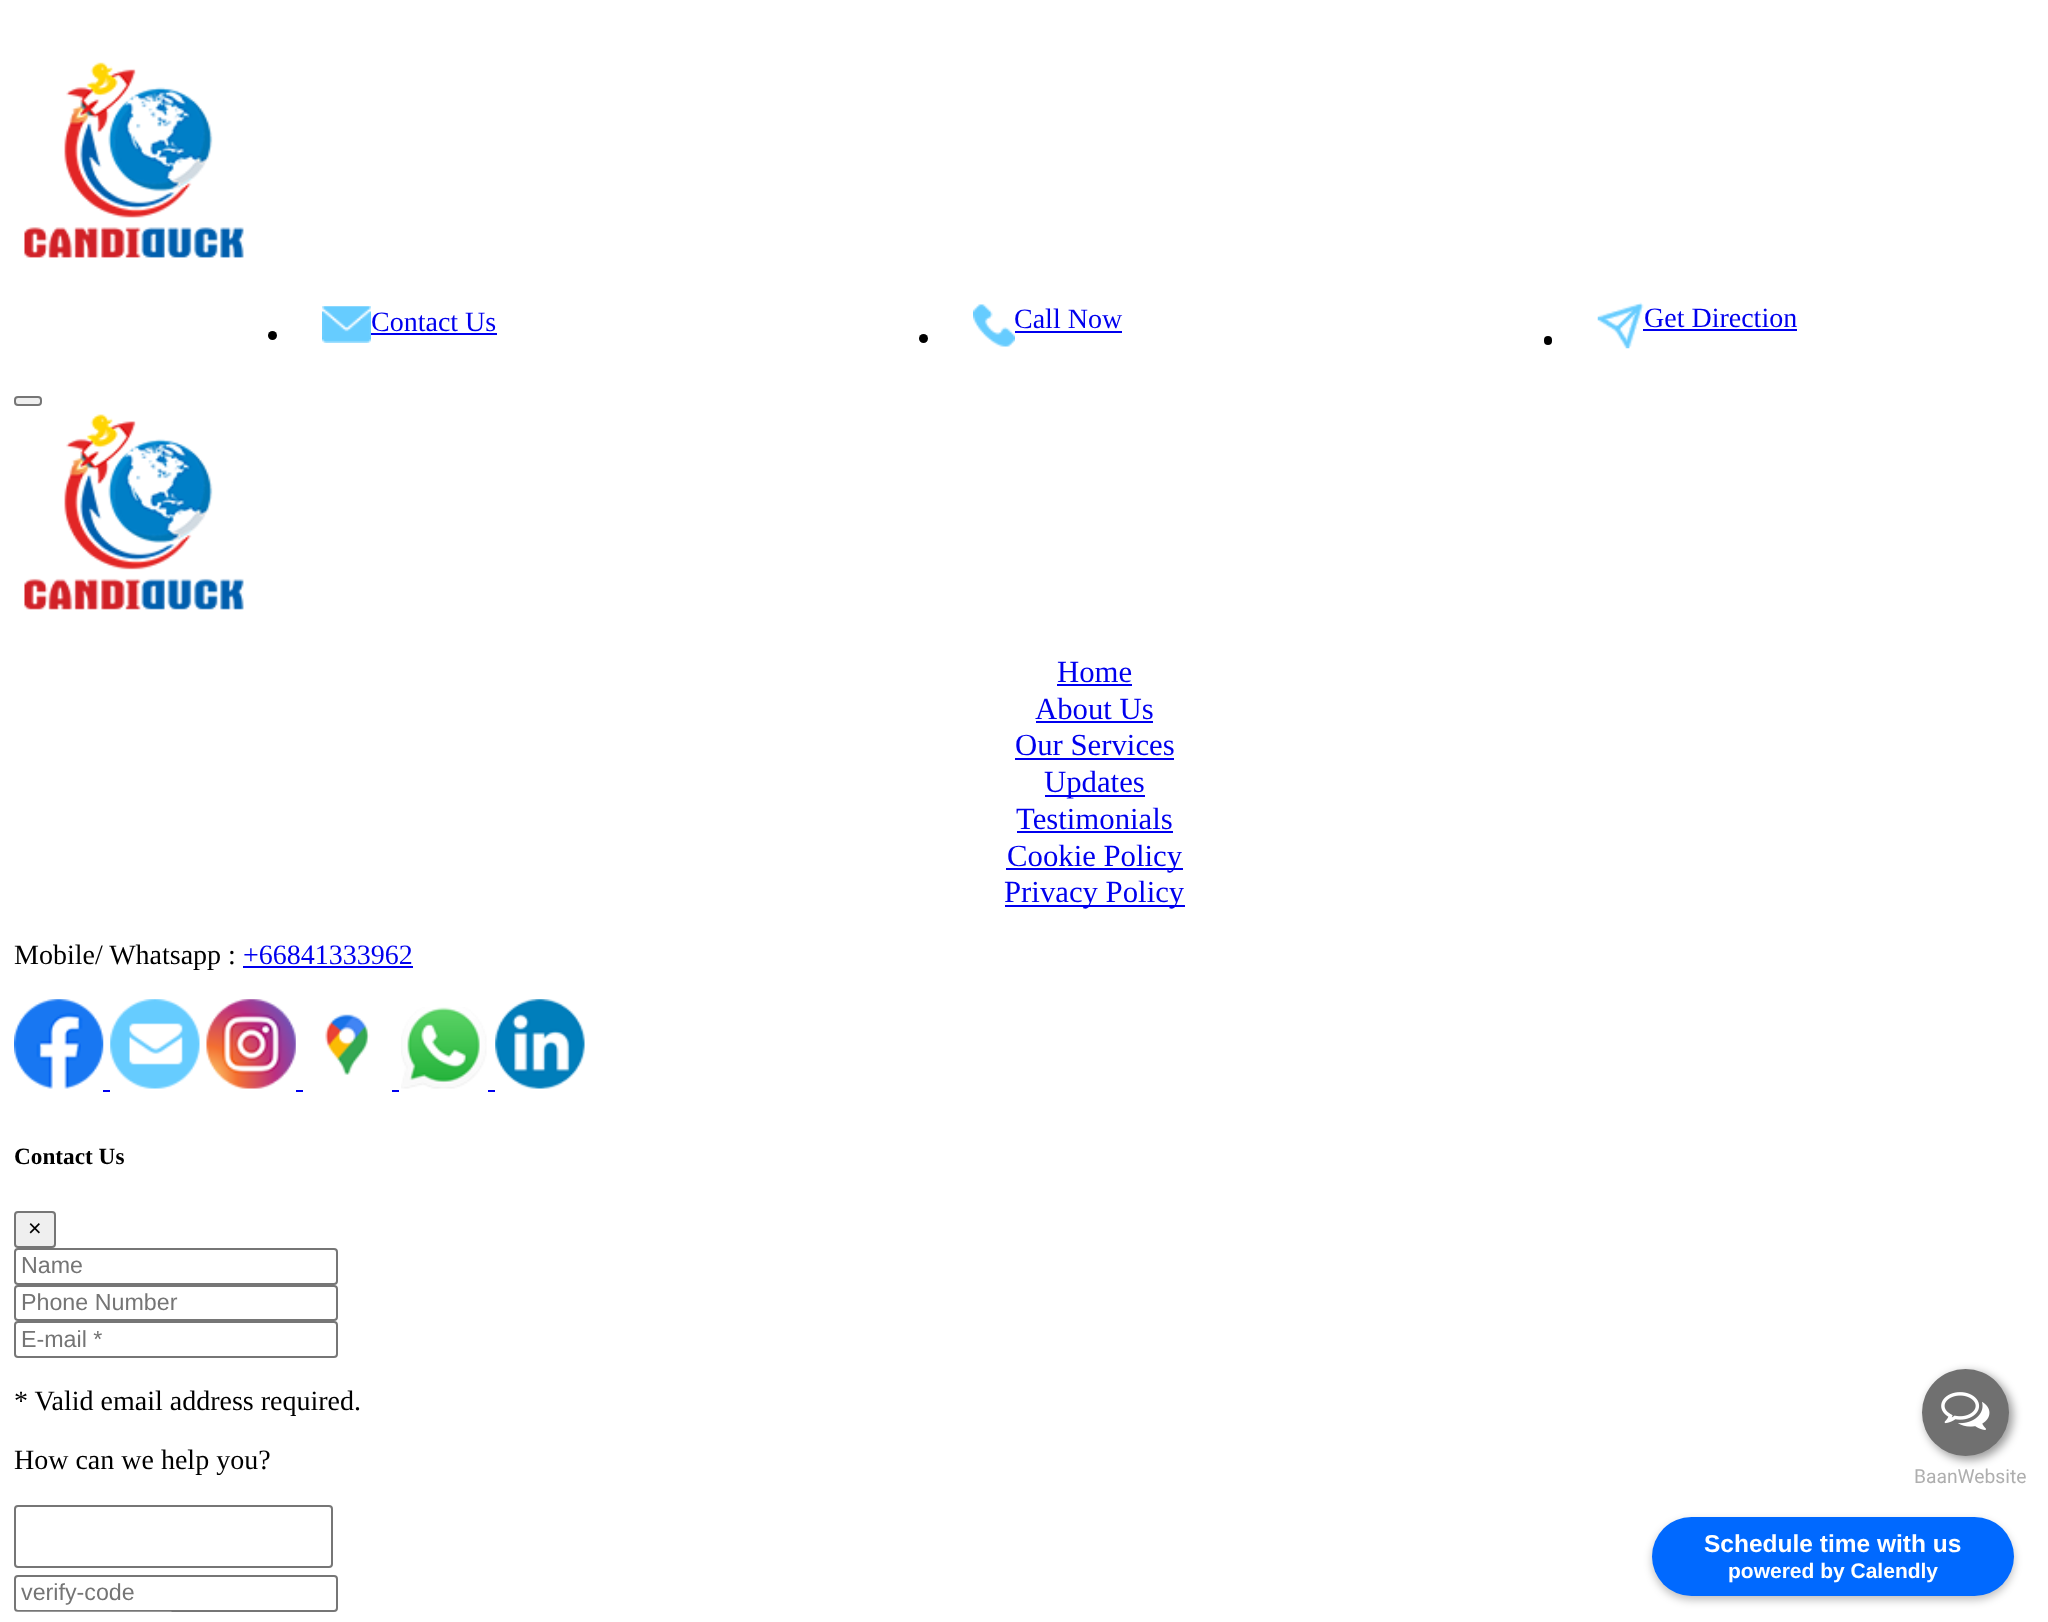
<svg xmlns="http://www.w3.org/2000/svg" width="2048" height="1622">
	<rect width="100%" height="100%" fill="#FFFFFF" />
	<image x="24" y="62" width="220" height="196" href="assets/img1.png" />
	<image x="322" y="306" width="49" height="37" href="assets/img2.png" />
	<text x="371" y="331" font-family="Liberation Serif" font-size="28" fill="#0000EE">Contact Us</text>
	<rect x="371" y="333" width="126" height="2" fill="#0000EE" />
	<circle cx="272.5" cy="335.5" r="4.5" fill="#000000" />
	<image x="973" y="304" width="42" height="43" href="assets/img3.png" />
	<text x="1014" y="328" font-family="Liberation Serif" font-size="28" fill="#0000EE">Call Now</text>
	<rect x="1015" y="331" width="107" height="2" fill="#0000EE" />
	<circle cx="923.5" cy="338.5" r="4.5" fill="#000000" />
	<image x="1597" y="302" width="47" height="47" href="assets/img4.png" />
	<text x="1644" y="327" font-family="Liberation Serif" font-size="28" fill="#0000EE">Get Direction</text>
	<rect x="1643" y="329" width="154" height="2" fill="#0000EE" />
	<rect x="1544" y="336" width="8" height="9" rx="4" fill="#000000" />
	<rect x="15" y="397" width="26" height="8" rx="3" fill="#EFEFEF" stroke="#767676" stroke-width="2" />
	<image x="24" y="414" width="220" height="196" href="assets/img5.png" />
	<text x="1057" y="682" font-family="Liberation Serif" font-size="30.75" fill="#0000EE">Home</text>
	<rect x="1057" y="684" width="75" height="2" fill="#0000EE" />
	<text x="1035" y="719" font-family="Liberation Serif" font-size="30.75" fill="#0000EE">About Us</text>
	<rect x="1036" y="721" width="117" height="2" fill="#0000EE" />
	<text x="1015" y="755" font-family="Liberation Serif" font-size="30.75" fill="#0000EE">Our Services</text>
	<rect x="1015" y="758" width="159" height="2" fill="#0000EE" />
	<rect x="1045" y="795" width="100" height="2" fill="#0000EE" />
	<g font-family="Liberation Serif" font-size="30.75" fill="#0000EE">
		<text x="1044" y="792">Updates</text>
		<text x="1016" y="829">Testimonials</text>
	</g>
	<rect x="1017" y="831" width="156" height="2" fill="#0000EE" />
	<rect x="1006" y="868" width="177" height="2" fill="#0000EE" />
	<text x="1007" y="866" font-family="Liberation Serif" font-size="30.75" fill="#0000EE">Cookie Policy</text>
	<rect x="1005" y="905" width="180" height="2" fill="#0000EE" />
	<text x="1004" y="902" font-family="Liberation Serif" font-size="30.75" fill="#0000EE">Privacy Policy</text>
	<text x="14" y="964" font-family="Liberation Serif" font-size="28" fill="#000000">Mobile/ Whatsapp :</text>
	<text x="243" y="964" font-family="Liberation Serif" font-size="28" fill="#0000EE">+66841333962</text>
	<rect x="243" y="966" width="170" height="2" fill="#0000EE" />
	<image x="14" y="999" width="90" height="90" href="assets/img6.png" />
	<image x="110" y="999" width="90" height="90" href="assets/img7.png" />
	<image x="206" y="999" width="90" height="90" href="assets/img8.png" />
	<image x="325" y="1014" width="45" height="61" href="assets/img9.png" />
	<image x="401" y="1007" width="86" height="82" href="assets/img10.png" />
	<image x="495" y="999" width="90" height="90" href="assets/img11.png" />
	<rect x="103" y="1090" width="7" height="2" fill="#0000EE" />
	<rect x="296" y="1090" width="7" height="2" fill="#0000EE" />
	<rect x="392" y="1090" width="7" height="2" fill="#0000EE" />
	<rect x="488" y="1090" width="7" height="2" fill="#0000EE" />
	<text x="14" y="1164" font-family="Liberation Serif" font-size="23.25" font-weight="700" fill="#000000">Contact Us</text>
	<rect x="15" y="1212" width="40" height="35" rx="3" fill="#EFEFEF" stroke="#767676" stroke-width="2" />
	<text x="28" y="1236" font-family="Liberation Sans" font-size="23.25" fill="#000000">×</text>
	<rect x="15" y="1249" width="322" height="35" rx="3" fill="none" stroke="#767676" stroke-width="2" />
	<text x="21" y="1273" font-family="Liberation Sans" font-size="23.25" fill="#757575">Name</text>
	<rect x="15" y="1286" width="322" height="34" rx="3" fill="none" stroke="#767676" stroke-width="2" />
	<text x="21" y="1310" font-family="Liberation Sans" font-size="23.25" fill="#757575">Phone Number</text>
	<rect x="15" y="1322" width="322" height="35" rx="3" fill="none" stroke="#767676" stroke-width="2" />
	<text x="21" y="1347" font-family="Liberation Sans" font-size="23.25" fill="#757575">E-mail *</text>
	<g font-family="Liberation Serif" font-size="28" fill="#000000">
		<text x="14" y="1410">* Valid email address required.</text>
		<text x="14" y="1469">How can we help you?</text>
	</g>
	<rect x="15" y="1506" width="317" height="61" rx="3" fill="none" stroke="#767676" stroke-width="2" />
	<rect x="15" y="1576" width="322" height="35" rx="3" fill="none" stroke="#767676" stroke-width="2" />
	<text x="21" y="1600" font-family="Liberation Sans" font-size="23.25" fill="#757575">verify-code</text>
	<image x="16" y="1611" width="156" height="1" href="assets/img12.png" />
	<rect x="1925" y="1372" width="88" height="88" rx="44" fill="#000000" fill-opacity="0.4" filter="blur(5px)" />
	<circle cx="1965.5" cy="1412.5" r="43.5" fill="#707070" />
	<image x="1941" y="1392" width="49" height="38" href="assets/img13.png" />
	<text x="1914" y="1483" font-family="Roboto" font-size="19.25" fill="#AFAFAF">BaanWebsite</text>
	<rect x="1652" y="1521" width="362" height="79" rx="39.5" fill="#000000" fill-opacity="0.25" filter="blur(4.5px)" />
	<rect x="1652" y="1517" width="362" height="79" rx="39.5" fill="#0069FF" />
	<text x="1704" y="1552" font-family="Liberation Sans" font-size="24.5" font-weight="700" fill="#FFFFFF">Schedule time with us</text>
	<text x="1728" y="1578" font-family="Liberation Sans" font-size="21" font-weight="700" fill="#FFFFFF">powered by Calendly</text>
</svg>
